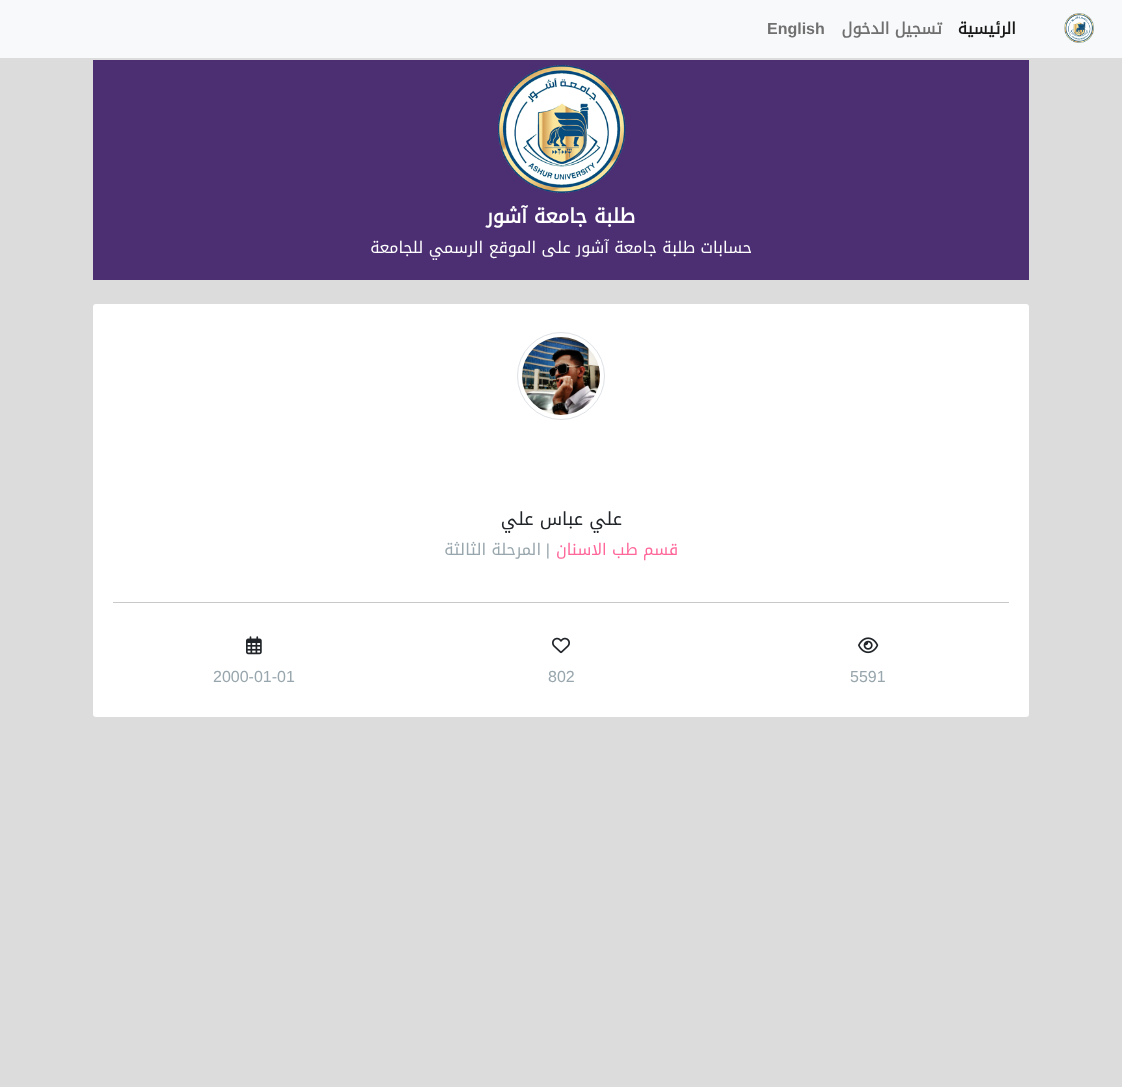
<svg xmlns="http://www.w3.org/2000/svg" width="1122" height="1087">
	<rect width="100%" height="100%" fill="#DCDCDC" />
	<rect x="0" y="0" width="1122" height="58" fill="#F8F9FA" />
	<image x="1064" y="13" width="30" height="30" href="assets/img1.png" />
	<text x="1016" y="34" font-family="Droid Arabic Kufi" font-size="16" font-weight="700" direction="rtl" fill="#191919">الرئيسية</text>
	<text x="942" y="34" font-family="Droid Arabic Kufi" font-size="16" font-weight="700" direction="rtl" fill="#707071">تسجيل الدخول</text>
	<text x="767" y="34" font-family="Liberation Sans" font-size="16" font-weight="700" fill="#707071">English</text>
	<rect x="93" y="60" width="936" height="220" fill="#4C2E72" />
	<image x="498" y="65" width="128" height="128" href="assets/img2.png" />
	<text x="635" y="223" font-family="Droid Arabic Kufi" font-size="20" font-weight="700" direction="rtl" fill="#FFFFFF">طلبة جامعة آشور</text>
	<text x="752" y="253" font-family="Droid Arabic Kufi" font-size="16" direction="rtl" fill="#FFFFFF">حسابات طلبة جامعة آشور على الموقع الرسمي للجامعة</text>
	<rect x="93" y="304" width="936" height="413" rx="3" fill="#FFFFFF" />
	<circle cx="561" cy="376" r="43.5" fill="none" stroke="#DEE2E6" />
	<image x="522" y="337" width="78" height="78" href="assets/img3.png" />
	<text x="622" y="525" font-family="Droid Arabic Kufi" font-size="18" direction="rtl" fill="#212529">علي عباس علي</text>
	<text x="678" y="555" font-family="Droid Arabic Kufi" font-size="16" direction="rtl" fill="#FF679B">قسم طب الاسنان</text>
	<text x="550" y="555" font-family="Liberation Sans" font-size="16" direction="rtl" fill="#98A6AD">|</text>
	<text x="541" y="555" font-family="Droid Arabic Kufi" font-size="16" direction="rtl" fill="#98A6AD">المرحلة الثالثة</text>
	<rect x="113" y="602" width="896" height="1" fill="#C8C9CA" />
	<image x="858" y="637" width="21" height="17" href="assets/img4.png" />
	<text x="850" y="682" font-family="Liberation Sans" font-size="16" fill="#98A6AD">5591</text>
	<image x="552" y="637" width="18" height="17" href="assets/img5.png" />
	<text x="548" y="682" font-family="Liberation Sans" font-size="16" fill="#98A6AD">802</text>
	<image x="246" y="636" width="16" height="19" href="assets/img6.png" />
	<text x="213" y="682" font-family="Liberation Sans" font-size="16" fill="#98A6AD">2000-01-01</text>
</svg>
